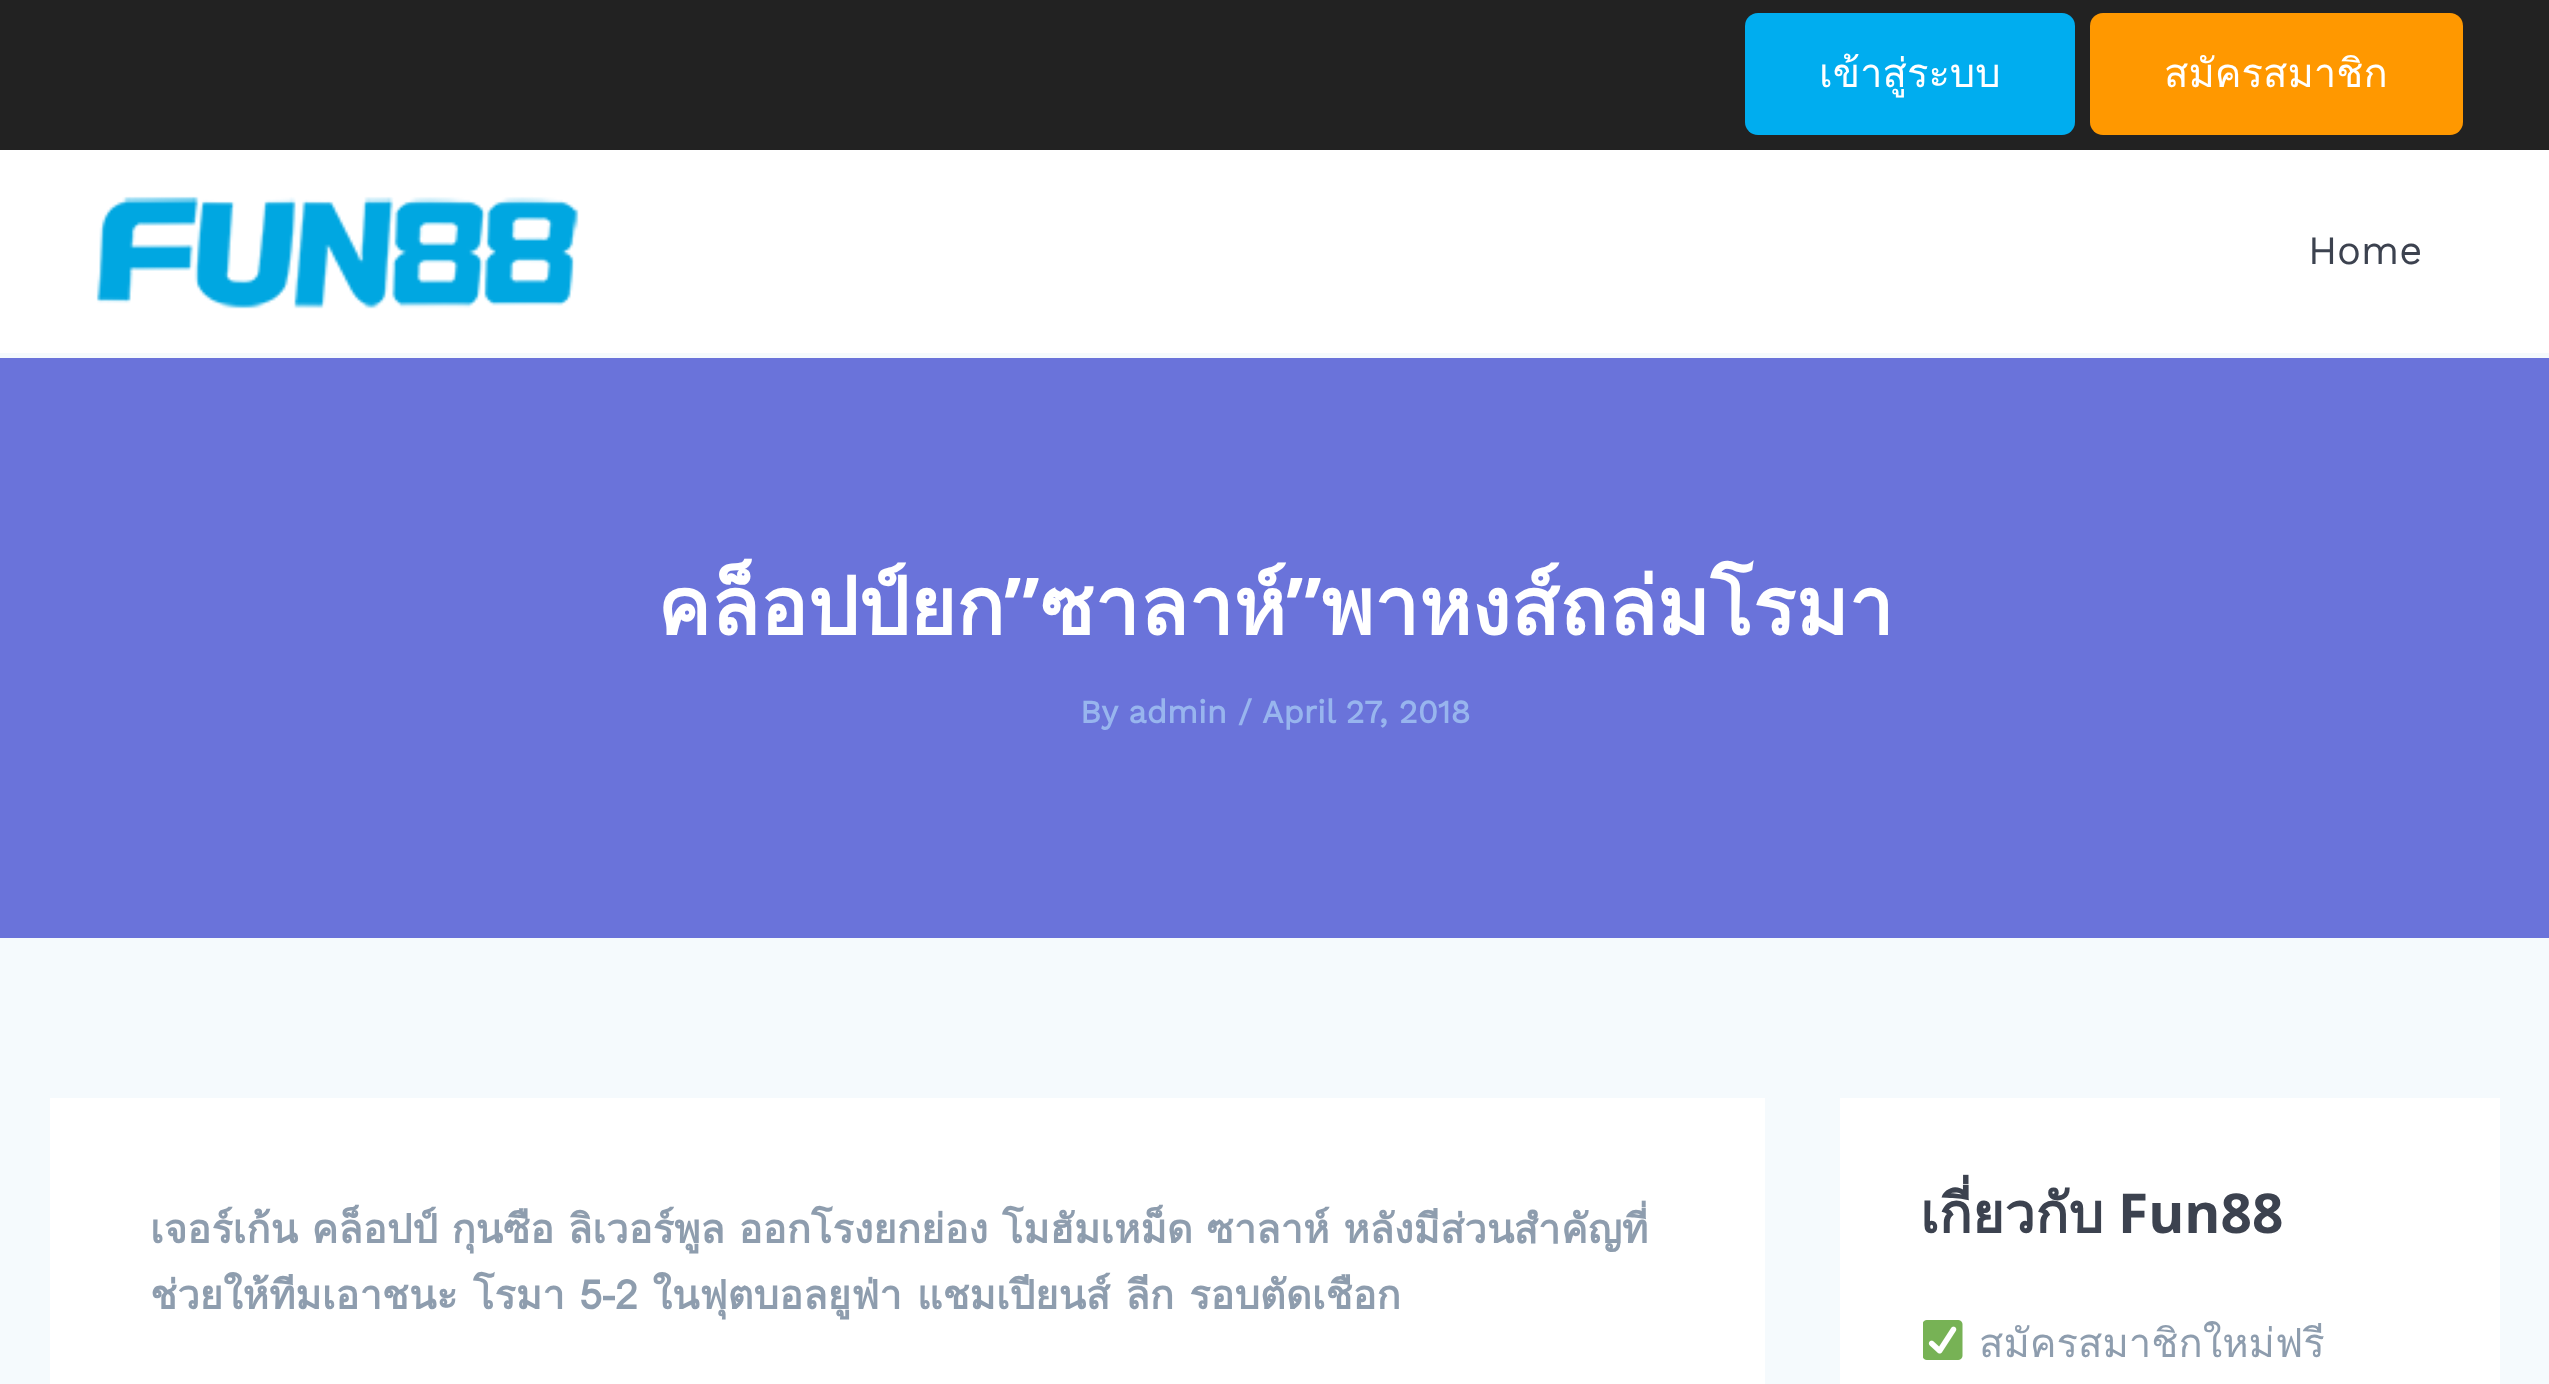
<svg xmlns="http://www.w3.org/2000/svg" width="2549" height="1384">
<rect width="100%" height="100%" fill="#f5fafd"/>
<rect width="2549" height="150" fill="#222"/>
<rect x="1745" y="13" width="330" height="122" rx="13" fill="#00adef"/>
<text x="1819" y="87" style="font-family:Loma;font-size:40px;fill:#fff">เข้าสู่ระบบ</text>
<rect x="2090" y="13" width="373" height="122" rx="13" fill="#ff9800"/>
<text x="2164" y="87" style="font-family:Loma;font-size:40px;fill:#fff">สมัครสมาชิก</text>
<rect y="150" width="2549" height="203" fill="#fff"/>
<image x="96" y="196" width="483" height="113" href="media/1.png"/>
<text x="2308" y="264" style="font-family:Work Sans;font-size:40px;fill:#3c424f">Home</text>
<rect y="358" width="2549" height="580" fill="#6a73da"/>
<text x="657" y="635" style="font-family:Loma;font-size:80px;font-weight:bold;fill:#fff">คล็อปป์ยก</text>
<text x="1004" y="635" style="font-family:Open Sans;font-size:80px;font-weight:bold;fill:#fff">”</text>
<text x="1040" y="635" style="font-family:Loma;font-size:80px;font-weight:bold;fill:#fff">ซาลาห์</text>
<text x="1286" y="635" style="font-family:Open Sans;font-size:80px;font-weight:bold;fill:#fff">”</text>
<text x="1321" y="635" style="font-family:Loma;font-size:80px;font-weight:bold;fill:#fff">พาหงส์ถล่มโรมา</text>
<text x="1080" y="723" style="font-family:Work Sans;font-size:32.5px;font-weight:bold;fill:#98b5ee">By admin /</text>
<text x="1262" y="723" style="font-family:Work Sans;font-size:32.5px;font-weight:bold;fill:#98b5ee">April 27, 2018</text>
<rect x="50" y="1098" width="1715" height="286" fill="#fff"/>
<text x="150" y="1243" word-spacing="0.25" style="font-family:Loma;font-size:40px;font-weight:bold;fill:#8e9dae">เจอร์เก้น คล็อปป์ กุนซือ ลิเวอร์พูล ออกโรงยกย่อง โมฮัมเหม็ด ซาลาห์ หลังมีส่วนสำคัญที่</text>
<text x="150" y="1309" word-spacing="1.5" style="font-family:Loma;font-size:40px;font-weight:bold;fill:#8e9dae">ช่วยให้ทีมเอาชนะ โรมา 5-2 ในฟุตบอลยูฟ่า แชมเปียนส์ ลีก รอบตัดเชือก</text>
<rect x="1840" y="1098" width="660" height="286" fill="#fff"/>
<text x="1920" y="1233" style="font-family:Loma;font-size:55px;font-weight:bold;fill:#3c424f">เกี่ยวกับ</text>
<text x="2118" y="1233" style="font-family:Open Sans;font-size:55px;font-weight:bold;fill:#3c424f">Fun88</text>
<image x="1923" y="1320" width="40" height="40" href="media/2.png"/>
<text x="1979" y="1357" style="font-family:Loma;font-size:40px;fill:#8e9dae">สมัครสมาชิกใหม่ฟรี</text>
</svg>
